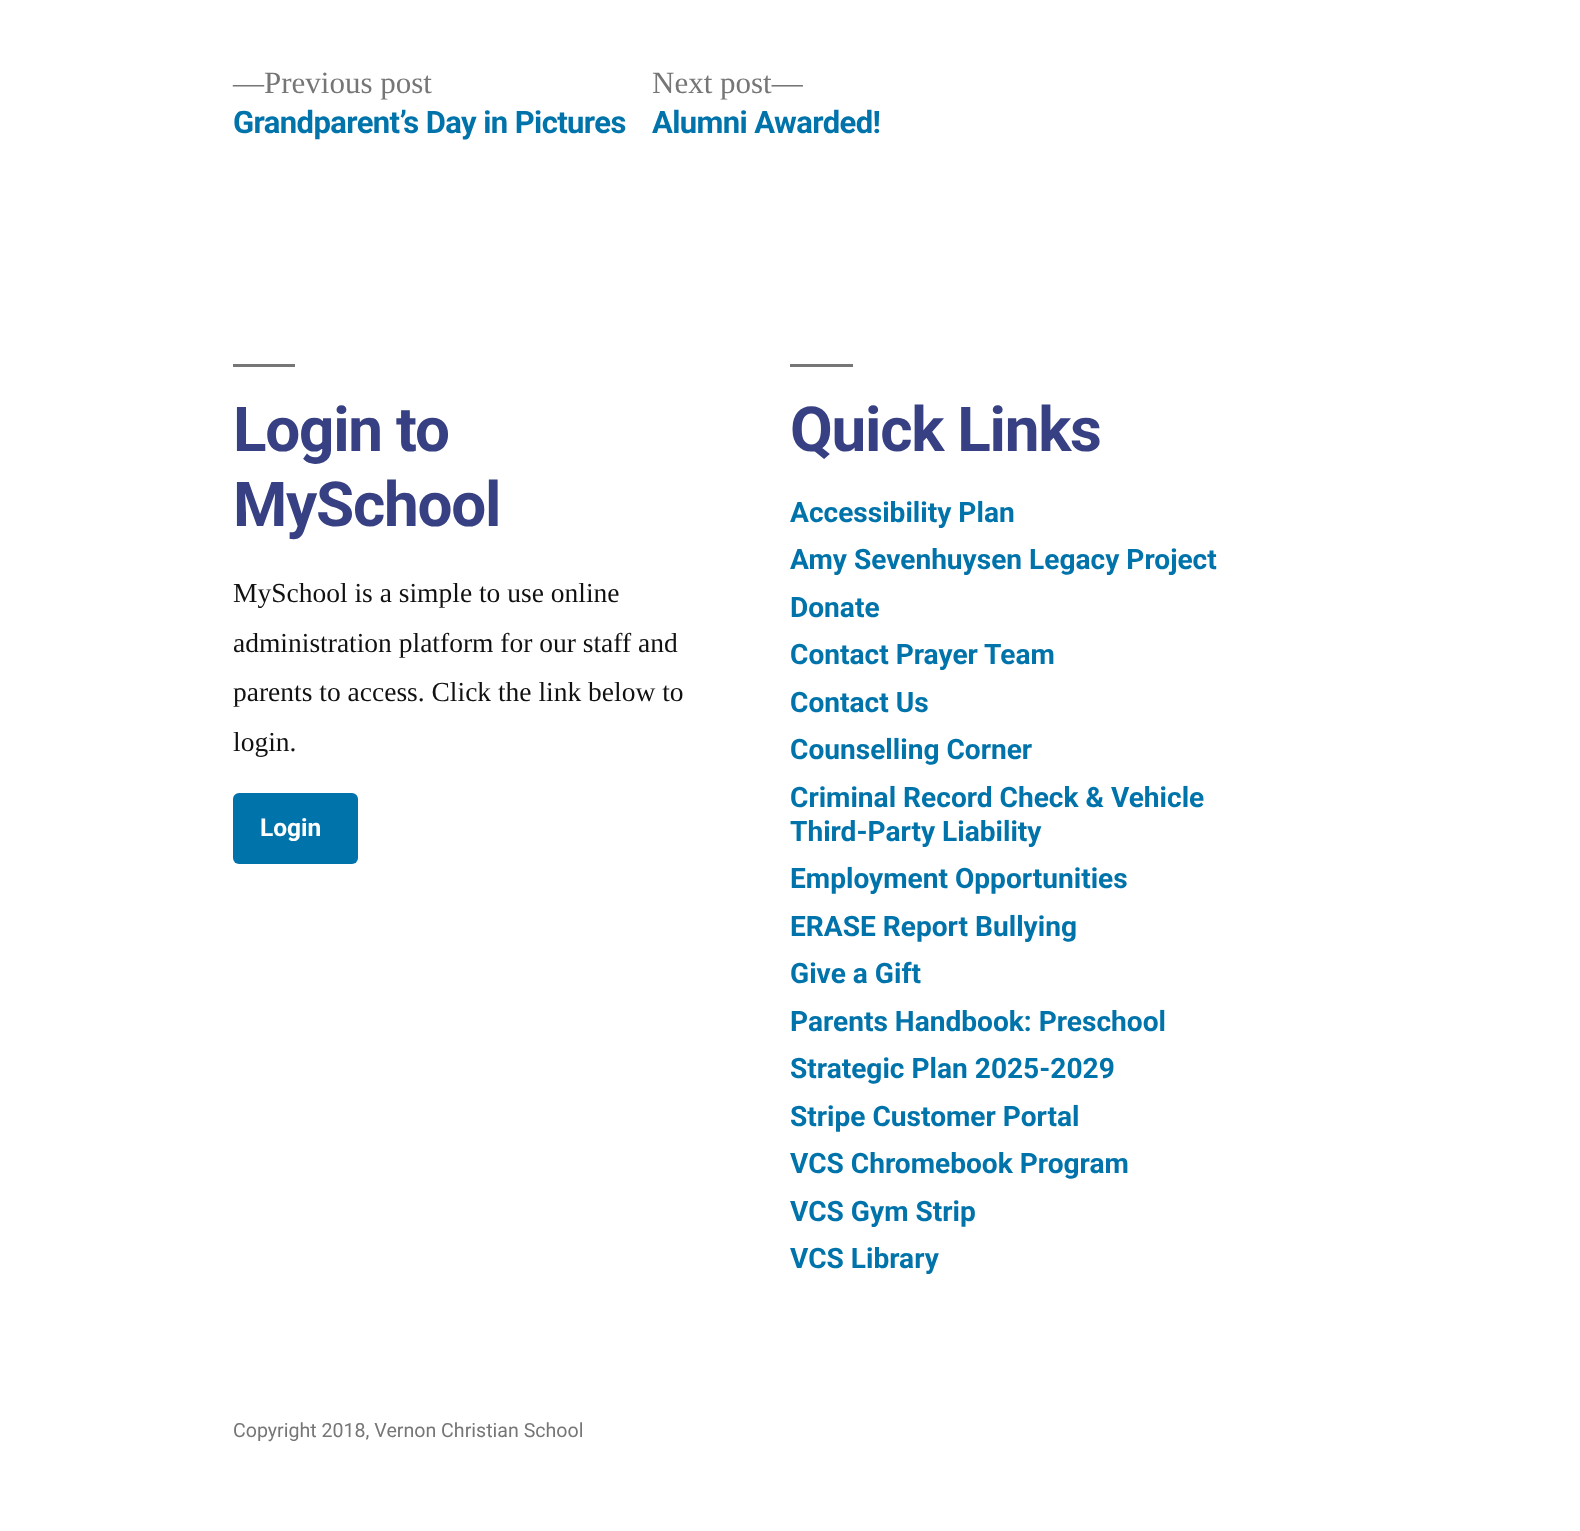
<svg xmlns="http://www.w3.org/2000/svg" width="1580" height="1531">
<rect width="100%" height="100%" fill="#fff"/>
<text x="233" y="93" style="font-family:Liberation Serif;font-size:31px;fill:#767676">—Previous post</text>
<text x="233" y="133" style="font-family:Roboto;font-size:31px;font-weight:bold;letter-spacing:-0.6px;fill:#0073aa">Grandparent’s Day in Pictures</text>
<text x="652" y="93" style="font-family:Liberation Serif;font-size:31px;fill:#767676">Next post—</text>
<text x="652" y="133" style="font-family:Roboto;font-size:31px;font-weight:bold;letter-spacing:-0.6px;fill:#0073aa">Alumni Awarded!</text>
<rect x="233" y="364" width="62" height="3" fill="#767676"/>
<text x="233" y="451" style="font-family:Roboto;font-size:62px;font-weight:bold;letter-spacing:-1.25px;fill:#364083">Login to</text>
<text x="233" y="526" style="font-family:Roboto;font-size:62px;font-weight:bold;letter-spacing:-1.25px;fill:#364083">MySchool</text>
<text x="233" y="602" style="font-family:Liberation Serif;font-size:27.5px;fill:#111">MySchool is a simple to use online</text>
<text x="233" y="652" style="font-family:Liberation Serif;font-size:27.5px;fill:#111">administration platform for our staff and</text>
<text x="233" y="701" style="font-family:Liberation Serif;font-size:27.5px;fill:#111">parents to access. Click the link below to</text>
<text x="233" y="751" style="font-family:Liberation Serif;font-size:27.5px;fill:#111">login.</text>
<rect x="233" y="793" width="125" height="71" rx="6" fill="#0073aa"/>
<text x="260" y="836" style="font-family:Roboto;font-size:24.5px;font-weight:bold;fill:#fff">Login</text>
<rect x="790" y="364" width="63" height="3" fill="#767676"/>
<text x="790" y="451" style="font-family:Roboto;font-size:62px;font-weight:bold;letter-spacing:-1.25px;fill:#364083">Quick Links</text>
<text x="790" y="522" style="font-family:Roboto;font-size:28.1px;font-weight:bold;fill:#0073aa">Accessibility Plan</text>
<text x="790" y="569" style="font-family:Roboto;font-size:28.1px;font-weight:bold;fill:#0073aa">Amy Sevenhuysen Legacy Project</text>
<text x="790" y="617" style="font-family:Roboto;font-size:28.1px;font-weight:bold;fill:#0073aa">Donate</text>
<text x="790" y="664" style="font-family:Roboto;font-size:28.1px;font-weight:bold;fill:#0073aa">Contact Prayer Team</text>
<text x="790" y="712" style="font-family:Roboto;font-size:28.1px;font-weight:bold;fill:#0073aa">Contact Us</text>
<text x="790" y="759" style="font-family:Roboto;font-size:28.1px;font-weight:bold;fill:#0073aa">Counselling Corner</text>
<text x="790" y="807" style="font-family:Roboto;font-size:28.1px;font-weight:bold;fill:#0073aa">Criminal Record Check &amp; Vehicle</text>
<text x="790" y="841" style="font-family:Roboto;font-size:28.1px;font-weight:bold;fill:#0073aa">Third-Party Liability</text>
<text x="790" y="888" style="font-family:Roboto;font-size:28.1px;font-weight:bold;fill:#0073aa">Employment Opportunities</text>
<text x="790" y="936" style="font-family:Roboto;font-size:28.1px;font-weight:bold;fill:#0073aa">ERASE Report Bullying</text>
<text x="790" y="983" style="font-family:Roboto;font-size:28.1px;font-weight:bold;fill:#0073aa">Give a Gift</text>
<text x="790" y="1031" style="font-family:Roboto;font-size:28.1px;font-weight:bold;fill:#0073aa">Parents Handbook: Preschool</text>
<text x="790" y="1078" style="font-family:Roboto;font-size:28.1px;font-weight:bold;fill:#0073aa">Strategic Plan 2025-2029</text>
<text x="790" y="1126" style="font-family:Roboto;font-size:28.1px;font-weight:bold;fill:#0073aa">Stripe Customer Portal</text>
<text x="790" y="1173" style="font-family:Roboto;font-size:28.1px;font-weight:bold;fill:#0073aa">VCS Chromebook Program</text>
<text x="790" y="1221" style="font-family:Roboto;font-size:28.1px;font-weight:bold;fill:#0073aa">VCS Gym Strip</text>
<text x="790" y="1268" style="font-family:Roboto;font-size:28.1px;font-weight:bold;fill:#0073aa">VCS Library</text>
<text x="233" y="1437" style="font-family:Roboto;font-size:19.6px;fill:#767676">Copyright 2018, Vernon Christian School</text>
</svg>
